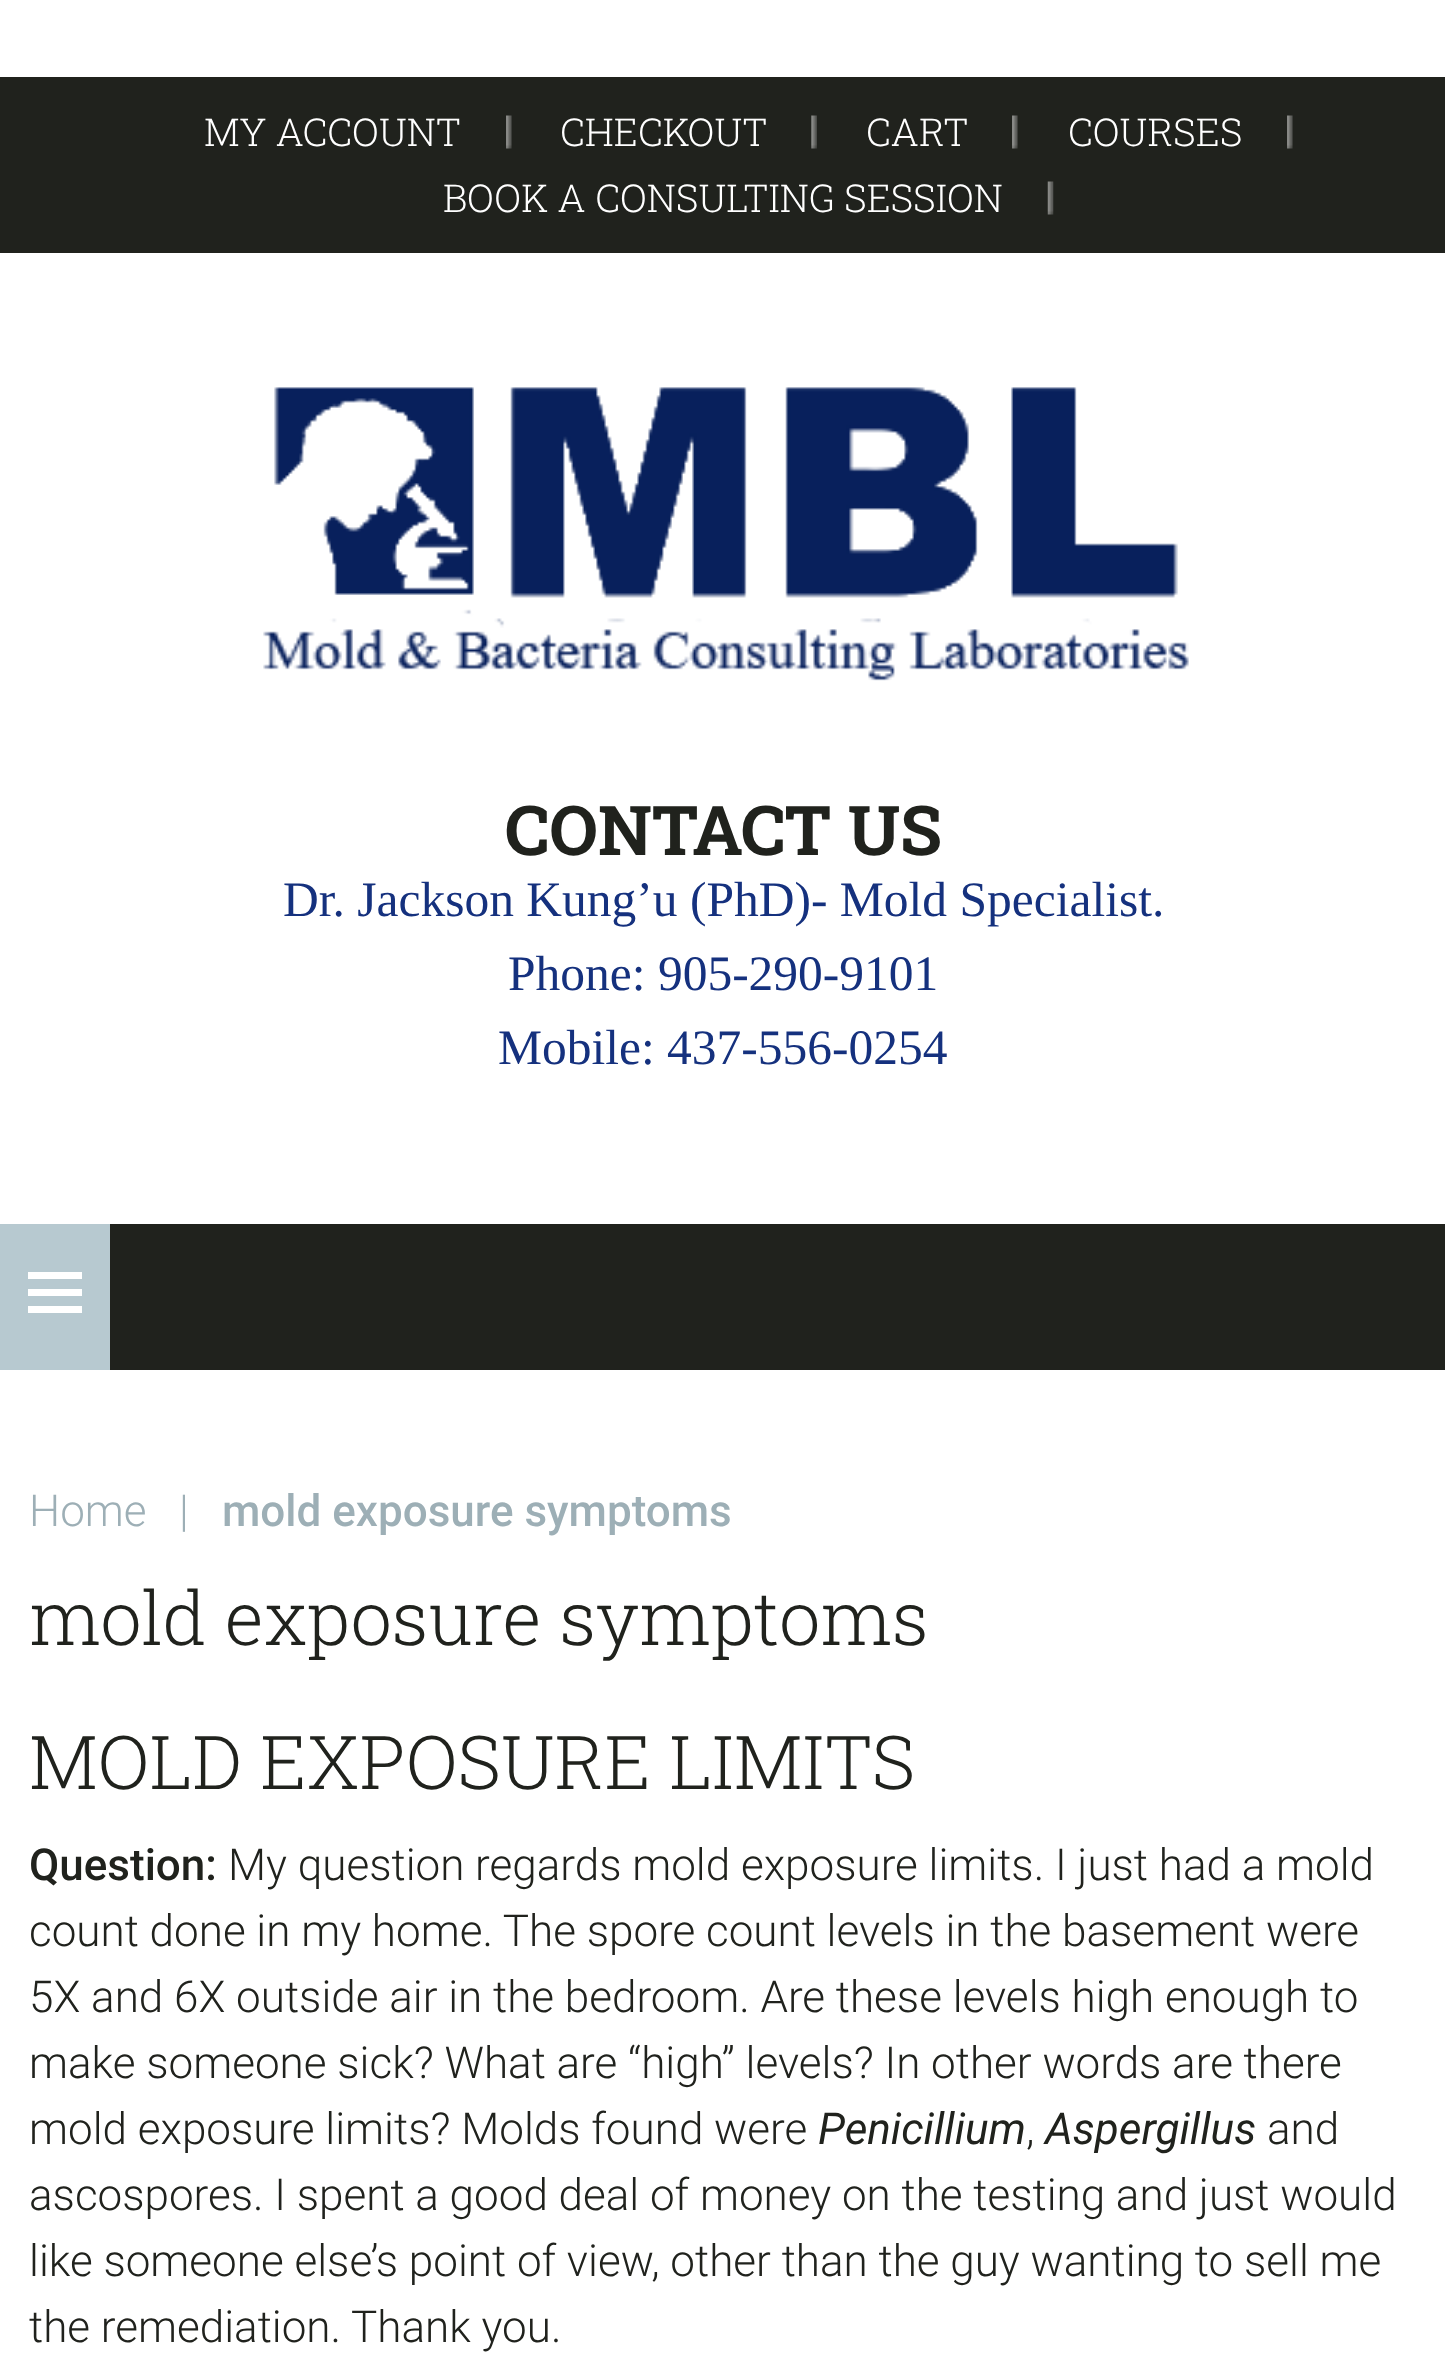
<svg xmlns="http://www.w3.org/2000/svg" width="1445" height="2369">
<rect width="100%" height="100%" fill="#fff"/>
<rect y="77" width="1445" height="176" fill="#20221d"/>
<image x="506" y="115" width="6" height="34" href="media/1.png"/>
<text x="204" y="146" style="font-family:Roboto Slab;font-size:38.5px;font-weight:300;fill:#fff">MY ACCOUNT</text>
<image x="811" y="115" width="6" height="34" href="media/2.png"/>
<text x="560" y="146" style="font-family:Roboto Slab;font-size:38.5px;font-weight:300;fill:#fff">CHECKOUT</text>
<image x="1012" y="115" width="6" height="34" href="media/1.png"/>
<text x="866" y="146" style="font-family:Roboto Slab;font-size:38.5px;font-weight:300;fill:#fff">CART</text>
<image x="1287" y="115" width="6" height="34" href="media/1.png"/>
<text x="1068" y="146" style="font-family:Roboto Slab;font-size:38.5px;font-weight:300;fill:#fff">COURSES</text>
<image x="1047" y="181" width="7" height="34" href="media/3.png"/>
<text x="443" y="212" style="font-family:Roboto Slab;font-size:38.5px;font-weight:300;fill:#fff">BOOK A CONSULTING SESSION</text>
<image x="263" y="387" width="926" height="294" href="media/4.png"/>
<text x="505" y="855" style="font-family:Roboto Slab;font-size:68.75px;font-weight:bold;fill:#20221d">CONTACT US</text>
<text x="283" y="916" style="font-family:Liberation Serif;font-size:49.5px;fill:#15317e">Dr. Jackson Kung’u (PhD)- Mold Specialist.</text>
<text x="508" y="990" style="font-family:Liberation Serif;font-size:49.5px;fill:#15317e">Phone: 905-290-9101</text>
<text x="498" y="1064" style="font-family:Liberation Serif;font-size:49.5px;fill:#15317e">Mobile: 437-556-0254</text>
<rect x="110" y="1224" width="1335" height="146" fill="#20221d"/>
<rect y="1224" width="110" height="146" fill="#b7c9d0"/>
<path d="M28 1313v-7h54v7zm0-41h54v7h-54zm0 24v-7h54v7z" fill="#fff"/>
<text x="29" y="1526" style="font-family:Roboto;font-size:44px;font-weight:300;fill:#9dafb6">Home</text>
<text x="179" y="1526" style="font-family:Roboto;font-size:44px;font-weight:300;fill:#9dafb6">|</text>
<text x="222" y="1526" style="font-family:Roboto;font-size:44px;font-weight:500;fill:#9dafb6">mold exposure symptoms</text>
<text x="29" y="1645" style="font-family:Roboto Slab;font-size:74.25px;font-weight:300;fill:#20221d">mold exposure symptoms</text>
<text x="29" y="1789" style="font-family:Roboto Slab;font-size:74.25px;font-weight:300;fill:#20221d">MOLD EXPOSURE LIMITS</text>
<text x="29" y="1880" style="font-family:Roboto;font-size:44px;font-weight:500;fill:#20221d">Question:</text>
<text x="228" y="1880" style="font-family:Roboto;font-size:44px;font-weight:300;fill:#20221d">My question regards mold exposure limits. I just had a mold</text>
<text x="29" y="1946" style="font-family:Roboto;font-size:44px;font-weight:300;fill:#20221d">count done in my home. The spore count levels in the basement were</text>
<text x="29" y="2012" style="font-family:Roboto;font-size:44px;font-weight:300;fill:#20221d">5X and 6X outside air in the bedroom. Are these levels high enough to</text>
<text x="29" y="2078" style="font-family:Roboto;font-size:44px;font-weight:300;fill:#20221d">make someone sick? What are “high” levels? In other words are there</text>
<text x="29" y="2144" style="font-family:Roboto;font-size:44px;font-weight:300;fill:#20221d">mold exposure limits? Molds found were</text>
<text x="818" y="2144" style="font-family:Roboto;font-size:44px;font-style:italic;fill:#20221d">Penicillium</text>
<text x="1026" y="2144" style="font-family:Roboto;font-size:44px;font-weight:300;fill:#20221d">,</text>
<text x="1045" y="2144" style="font-family:Roboto;font-size:44px;font-style:italic;fill:#20221d">Aspergillus</text>
<text x="1267" y="2144" style="font-family:Roboto;font-size:44px;font-weight:300;fill:#20221d">and</text>
<text x="29" y="2210" style="font-family:Roboto;font-size:44px;font-weight:300;fill:#20221d">ascospores. I spent a good deal of money on the testing and just would</text>
<text x="29" y="2276" style="font-family:Roboto;font-size:44px;font-weight:300;fill:#20221d">like someone else’s point of view, other than the guy wanting to sell me</text>
<text x="29" y="2342" style="font-family:Roboto;font-size:44px;font-weight:300;fill:#20221d">the remediation. Thank you.</text>
</svg>
